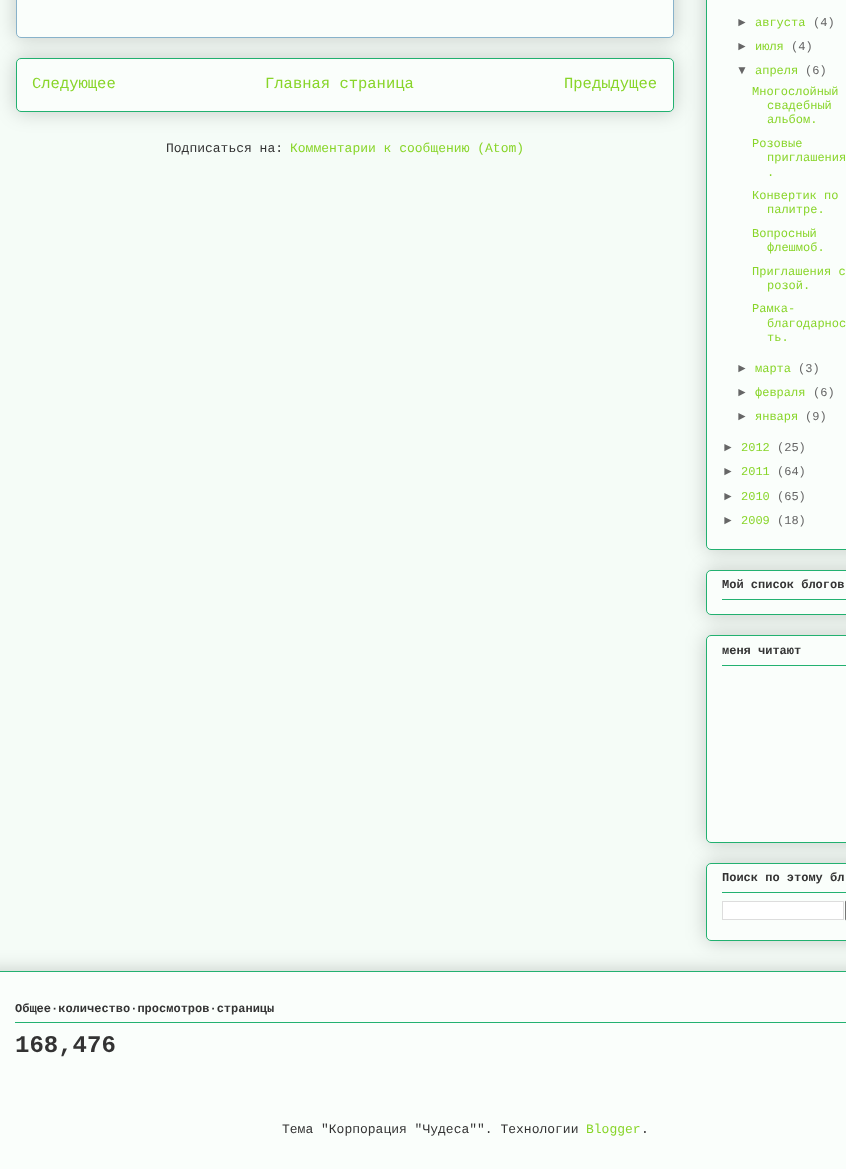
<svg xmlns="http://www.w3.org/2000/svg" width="846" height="1169">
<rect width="100%" height="100%" fill="#f5fcf7"/>
<rect x="16" y="58" width="658" height="54" rx="5" fill="#00000033" filter="blur(10px)"/>
<rect x="16.5" y="58.5" width="657" height="53" rx="4.5" fill="#fafefb" stroke="#22b170"/>
<rect x="16" y="-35" width="658" height="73" rx="5" fill="#00000033" filter="blur(10px)"/>
<rect x="16.5" y="-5.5" width="657" height="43" rx="4.5" fill="#fafefb" stroke="#88b2ca"/>
<text x="32" y="88" style="font-family:Liberation Mono;font-size:15.5px;fill:#88d529">Следующее</text>
<text x="265" y="88" style="font-family:Liberation Mono;font-size:15.5px;fill:#88d529">Главная страница</text>
<text x="564" y="88" style="font-family:Liberation Mono;font-size:15.5px;fill:#88d529">Предыдущее</text>
<text x="166" y="152" style="font-family:Liberation Mono;font-size:13px;fill:#333">Подписаться на:</text>
<text x="290" y="152" style="font-family:Liberation Mono;font-size:13px;fill:#88d529">Комментарии к сообщению (Atom)</text>
<rect x="706" y="-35" width="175" height="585" rx="5" fill="#00000033" filter="blur(10px)"/>
<rect x="706.5" y="-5.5" width="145" height="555" rx="4.5" fill="#fafefb" stroke="#22b170"/>
<text x="736" y="26" style="font-family:Liberation Sans;font-size:12px;fill:#666">►</text>
<text x="755" y="26" style="font-family:Liberation Mono;font-size:12px;fill:#88d529">августа</text>
<text x="813" y="26" style="font-family:Liberation Mono;font-size:12px;fill:#666">(4)</text>
<text x="736" y="50" style="font-family:Liberation Sans;font-size:12px;fill:#666">►</text>
<text x="755" y="50" style="font-family:Liberation Mono;font-size:12px;fill:#88d529">июля</text>
<text x="791" y="50" style="font-family:Liberation Mono;font-size:12px;fill:#666">(4)</text>
<text x="736" y="74" style="font-family:Liberation Sans;font-size:12px;fill:#666">▼</text>
<text x="755" y="74" style="font-family:Liberation Mono;font-size:12px;fill:#88d529">апреля</text>
<text x="805" y="74" style="font-family:Liberation Mono;font-size:12px;fill:#666">(6)</text>
<text x="752" y="95" style="font-family:Liberation Mono;font-size:12px;fill:#88d529">Многослойный</text>
<text x="767" y="109" style="font-family:Liberation Mono;font-size:12px;fill:#88d529">свадебный</text>
<text x="767" y="123" style="font-family:Liberation Mono;font-size:12px;fill:#88d529">альбом.</text>
<text x="752" y="147" style="font-family:Liberation Mono;font-size:12px;fill:#88d529">Розовые</text>
<text x="767" y="161" style="font-family:Liberation Mono;font-size:12px;fill:#88d529">приглашения</text>
<text x="767" y="176" style="font-family:Liberation Mono;font-size:12px;fill:#88d529">.</text>
<text x="752" y="199" style="font-family:Liberation Mono;font-size:12px;fill:#88d529">Конвертик по</text>
<text x="767" y="213" style="font-family:Liberation Mono;font-size:12px;fill:#88d529">палитре.</text>
<text x="752" y="237" style="font-family:Liberation Mono;font-size:12px;fill:#88d529">Вопросный</text>
<text x="767" y="251" style="font-family:Liberation Mono;font-size:12px;fill:#88d529">флешмоб.</text>
<text x="752" y="275" style="font-family:Liberation Mono;font-size:12px;fill:#88d529">Приглашения с</text>
<text x="767" y="289" style="font-family:Liberation Mono;font-size:12px;fill:#88d529">розой.</text>
<text x="752" y="312" style="font-family:Liberation Mono;font-size:12px;fill:#88d529">Рамка-</text>
<text x="767" y="327" style="font-family:Liberation Mono;font-size:12px;fill:#88d529">благодарнос</text>
<text x="767" y="341" style="font-family:Liberation Mono;font-size:12px;fill:#88d529">ть.</text>
<text x="736" y="372" style="font-family:Liberation Sans;font-size:12px;fill:#666">►</text>
<text x="755" y="372" style="font-family:Liberation Mono;font-size:12px;fill:#88d529">марта</text>
<text x="798" y="372" style="font-family:Liberation Mono;font-size:12px;fill:#666">(3)</text>
<text x="736" y="396" style="font-family:Liberation Sans;font-size:12px;fill:#666">►</text>
<text x="755" y="396" style="font-family:Liberation Mono;font-size:12px;fill:#88d529">февраля</text>
<text x="813" y="396" style="font-family:Liberation Mono;font-size:12px;fill:#666">(6)</text>
<text x="736" y="420" style="font-family:Liberation Sans;font-size:12px;fill:#666">►</text>
<text x="755" y="420" style="font-family:Liberation Mono;font-size:12px;fill:#88d529">января</text>
<text x="805" y="420" style="font-family:Liberation Mono;font-size:12px;fill:#666">(9)</text>
<text x="722" y="451" style="font-family:Liberation Sans;font-size:12px;fill:#666">►</text>
<text x="741" y="451" style="font-family:Liberation Mono;font-size:12px;fill:#88d529">2012</text>
<text x="777" y="451" style="font-family:Liberation Mono;font-size:12px;fill:#666">(25)</text>
<text x="722" y="475" style="font-family:Liberation Sans;font-size:12px;fill:#666">►</text>
<text x="741" y="475" style="font-family:Liberation Mono;font-size:12px;fill:#88d529">2011</text>
<text x="777" y="475" style="font-family:Liberation Mono;font-size:12px;fill:#666">(64)</text>
<text x="722" y="500" style="font-family:Liberation Sans;font-size:12px;fill:#666">►</text>
<text x="741" y="500" style="font-family:Liberation Mono;font-size:12px;fill:#88d529">2010</text>
<text x="777" y="500" style="font-family:Liberation Mono;font-size:12px;fill:#666">(65)</text>
<text x="722" y="524" style="font-family:Liberation Sans;font-size:12px;fill:#666">►</text>
<text x="741" y="524" style="font-family:Liberation Mono;font-size:12px;fill:#88d529">2009</text>
<text x="777" y="524" style="font-family:Liberation Mono;font-size:12px;fill:#666">(18)</text>
<rect x="706" y="570" width="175" height="45" rx="5" fill="#00000033" filter="blur(10px)"/>
<rect x="706.5" y="570.5" width="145" height="44" rx="4.5" fill="#fafefb" stroke="#22b170"/>
<text x="722" y="588" style="font-family:Liberation Mono;font-size:12px;font-weight:bold;fill:#333">Мой список блогов</text>
<rect x="722" y="599" width="124" height="1" fill="#22b170"/>
<rect x="706" y="635" width="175" height="208" rx="5" fill="#00000033" filter="blur(10px)"/>
<rect x="706.5" y="635.5" width="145" height="207" rx="4.5" fill="#fafefb" stroke="#22b170"/>
<text x="722" y="654" style="font-family:Liberation Mono;font-size:12px;font-weight:bold;fill:#333">меня читают</text>
<rect x="722" y="665" width="124" height="1" fill="#22b170"/>
<rect x="706" y="863" width="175" height="78" rx="5" fill="#00000033" filter="blur(10px)"/>
<rect x="706.5" y="863.5" width="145" height="77" rx="4.5" fill="#fafefb" stroke="#22b170"/>
<text x="722" y="881" style="font-family:Liberation Mono;font-size:12px;font-weight:bold;fill:#333">Поиск по этому бл</text>
<rect x="722" y="892" width="124" height="1" fill="#22b170"/>
<rect x="722.5" y="901.5" width="121" height="18" fill="#fff" stroke="#ddd"/>
<rect x="845.5" y="900.5" width="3" height="20" rx="1.5" fill="none" stroke="#767676"/>
<rect x="-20" y="971" width="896" height="198" fill="#00000033" filter="blur(10px)"/>
<rect y="972" width="846" height="197" fill="#fafefb"/>
<rect y="971" width="846" height="1" fill="#22b170"/>
<text x="15" y="1012" style="font-family:Liberation Mono;font-size:12px;font-weight:bold;fill:#333">Общее·количество·просмотров·страницы</text>
<rect x="15" y="1022" width="831" height="1" fill="#22b170"/>
<text x="15" y="1052" style="font-family:Liberation Mono;font-size:24px;font-weight:bold;fill:#333">168,476</text>
<text x="282" y="1133" style="font-family:Liberation Mono;font-size:13px;fill:#333">Тема "Корпорация "Чудеса"". Технологии</text>
<text x="586" y="1133" style="font-family:Liberation Mono;font-size:13px;fill:#88d529">Blogger</text>
<text x="641" y="1133" style="font-family:Liberation Mono;font-size:13px;fill:#333">.</text>
</svg>
